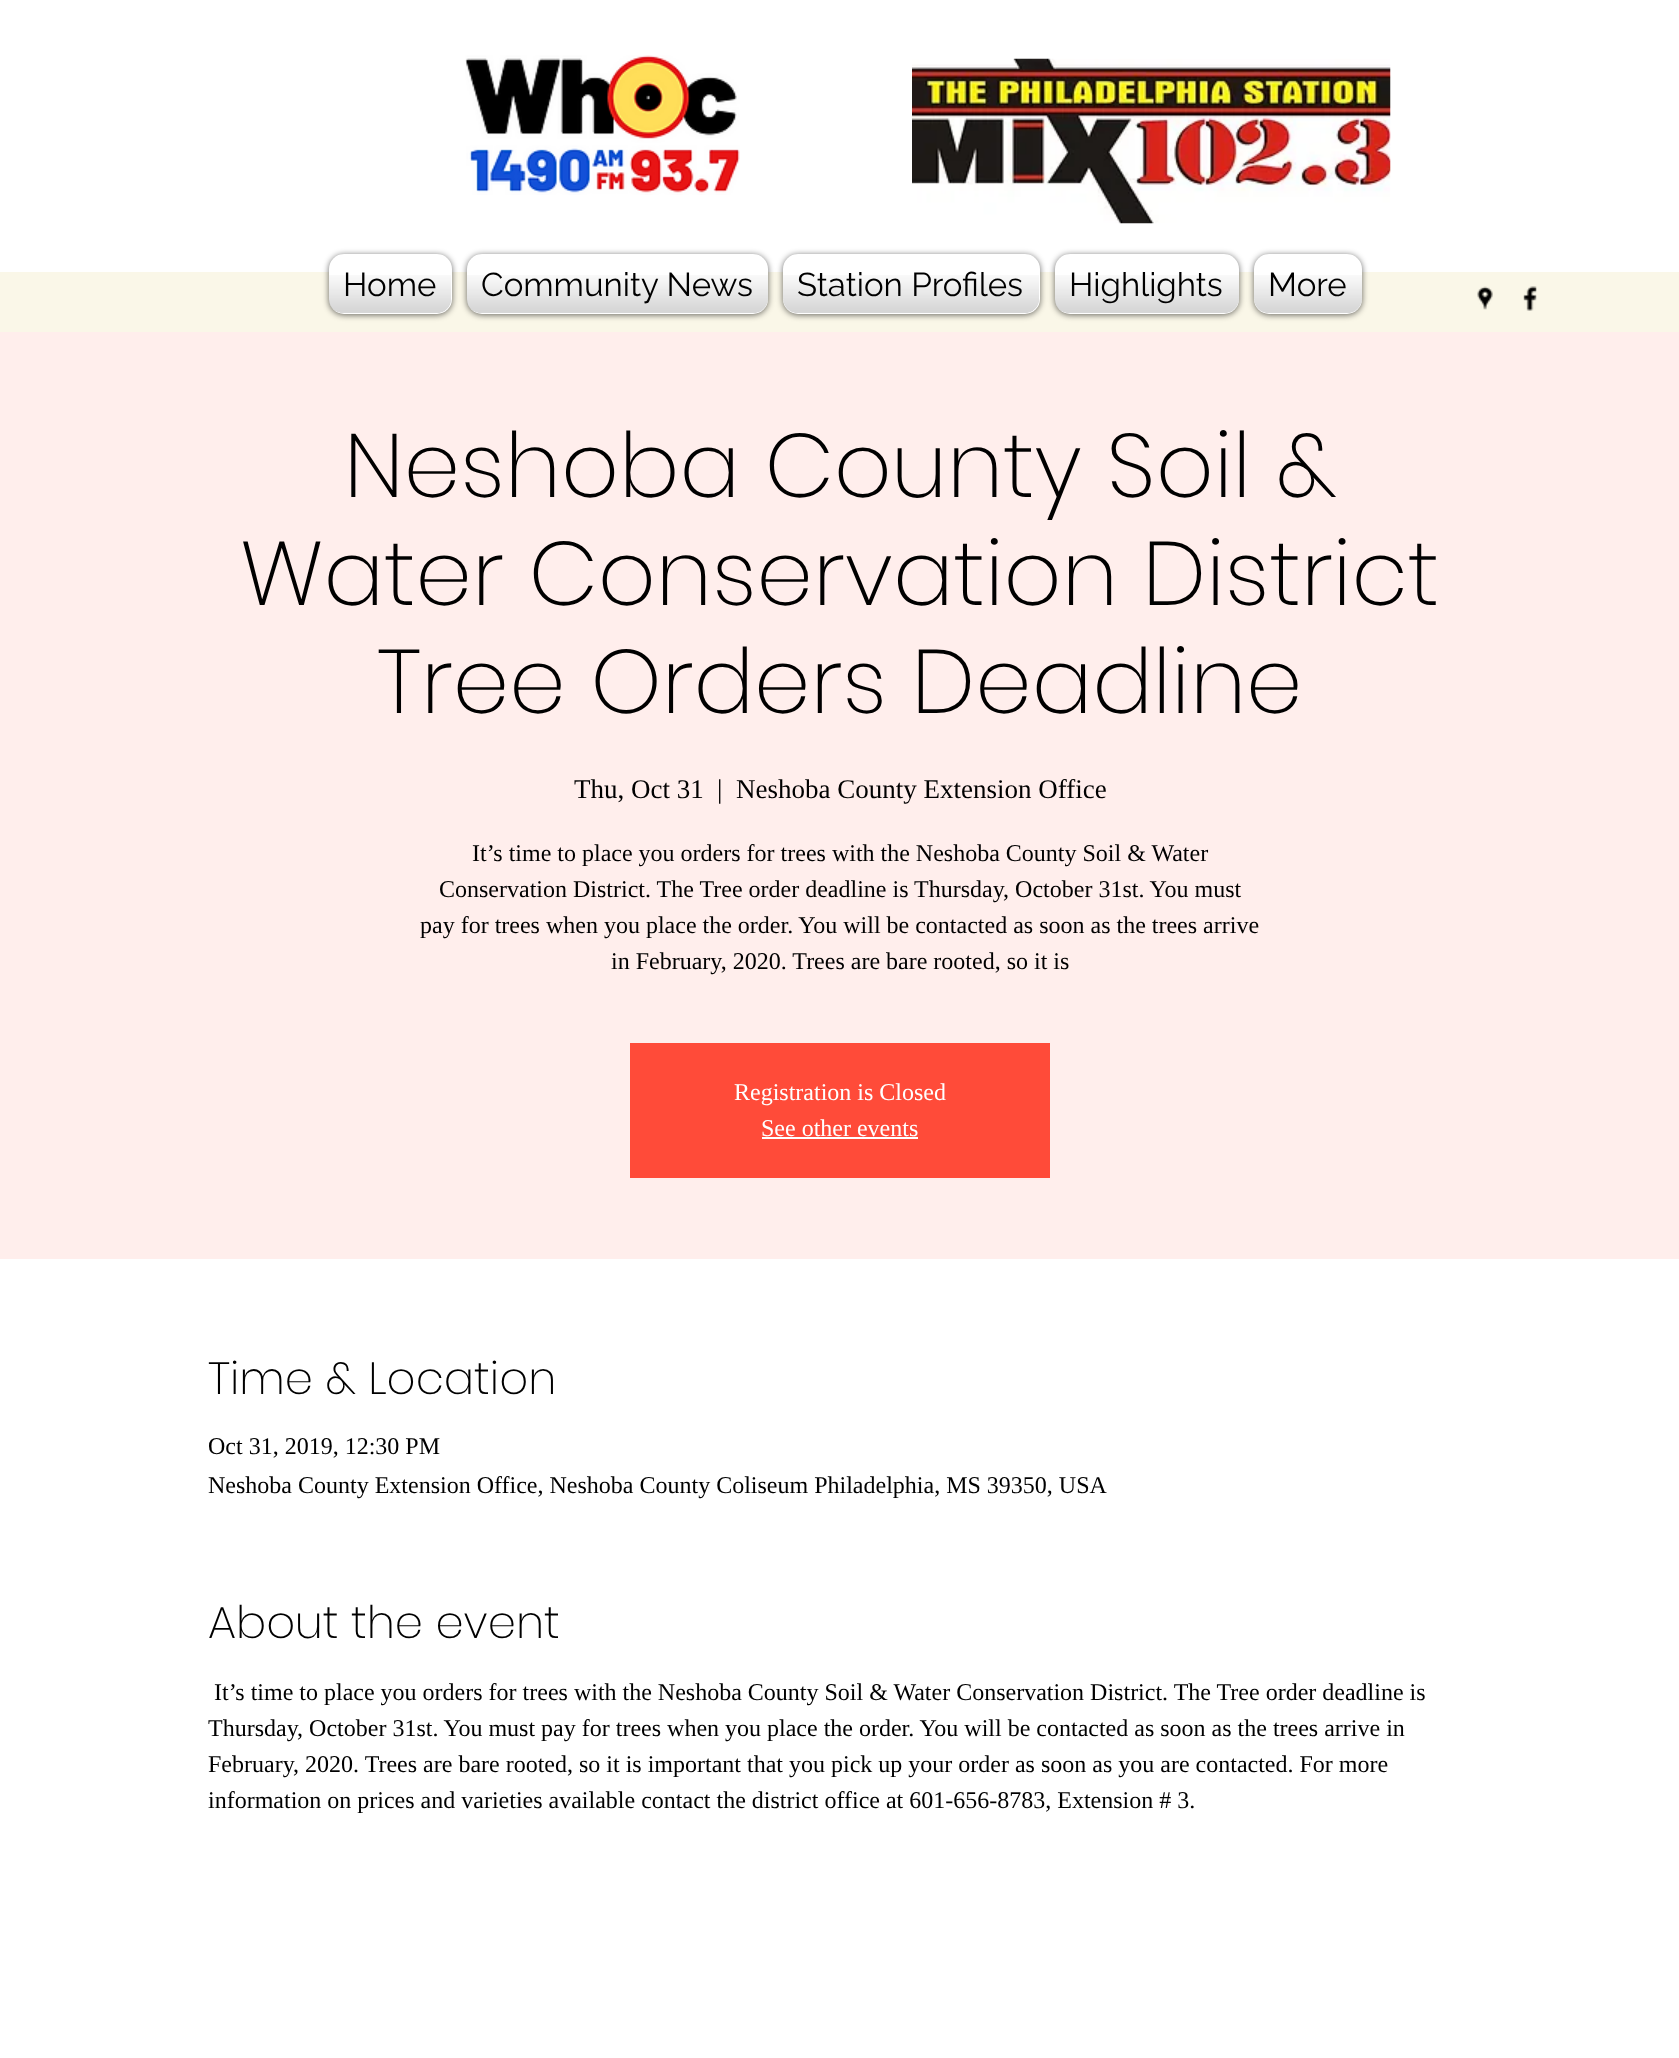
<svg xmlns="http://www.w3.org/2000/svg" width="1679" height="2058">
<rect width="100%" height="100%" fill="#fff"/>
<image x="465" y="55" width="275" height="140" href="media/1.png"/>
<image x="912" y="58" width="479" height="166" href="media/2.png"/>
<rect y="272" width="1679" height="60" fill="#faf7e8"/>
<rect x="329" y="255" width="123" height="60" rx="15" fill="#00000099" filter="blur(3px)"/>
<rect x="329" y="254" width="123" height="60" rx="15" fill="#fff"/>
<image x="329" y="275" width="122" height="38" href="media/3.png"/>
<text x="343" y="296" style="font-family:Raleway;font-size:33px;fill:#000">Home</text>
<rect x="467" y="255" width="301" height="60" rx="15" fill="#00000099" filter="blur(3px)"/>
<rect x="467" y="254" width="301" height="60" rx="15" fill="#fff"/>
<image x="467" y="275" width="301" height="38" href="media/4.png"/>
<text x="481" y="296" style="font-family:Raleway;font-size:33px;fill:#000">Community News</text>
<rect x="783" y="255" width="257" height="60" rx="15" fill="#00000099" filter="blur(3px)"/>
<rect x="783" y="254" width="257" height="60" rx="15" fill="#fff"/>
<image x="783" y="275" width="256" height="38" href="media/5.png"/>
<text x="797" y="296" style="font-family:Raleway;font-size:33px;fill:#000">Station Profiles</text>
<rect x="1055" y="255" width="184" height="60" rx="15" fill="#00000099" filter="blur(3px)"/>
<rect x="1055" y="254" width="184" height="60" rx="15" fill="#fff"/>
<image x="1055" y="275" width="184" height="38" href="media/6.png"/>
<text x="1069" y="296" style="font-family:Raleway;font-size:33px;fill:#000">Highlights</text>
<rect x="1254" y="255" width="108" height="60" rx="15" fill="#00000099" filter="blur(3px)"/>
<rect x="1254" y="254" width="108" height="60" rx="15" fill="#fff"/>
<image x="1254" y="275" width="108" height="38" href="media/7.png"/>
<text x="1268" y="296" style="font-family:Raleway;font-size:33px;fill:#000">More</text>
<image x="1477" y="286" width="16" height="24" href="media/8.png"/>
<image x="1523" y="286" width="14" height="25" href="media/9.png"/>
<rect y="332" width="1679" height="927" fill="#ffeeec"/>
<text x="344" y="497" style="font-family:Poppins;font-size:90px;font-weight:200;fill:#000">Neshoba County Soil &amp;</text>
<text x="240" y="605" style="font-family:Poppins;font-size:90px;font-weight:200;fill:#000">Water Conservation District</text>
<text x="377" y="713" style="font-family:Poppins;font-size:90px;font-weight:200;fill:#000">Tree Orders Deadline</text>
<text x="574" y="798" style="font-family:Liberation Serif;font-size:27px;fill:#000">Thu, Oct 31</text>
<text x="717" y="798" style="font-family:Liberation Serif;font-size:27px;fill:#000">|</text>
<text x="736" y="798" style="font-family:Liberation Serif;font-size:27px;fill:#000">Neshoba County Extension Office</text>
<text x="472" y="861" style="font-family:Liberation Serif;font-size:24px;fill:#000">It’s time to place you orders for trees with the Neshoba County Soil &amp; Water</text>
<text x="439" y="897" style="font-family:Liberation Serif;font-size:24px;fill:#000">Conservation District. The Tree order deadline is Thursday, October 31st. You must</text>
<text x="420" y="933" style="font-family:Liberation Serif;font-size:24px;fill:#000">pay for trees when you place the order. You will be contacted as soon as the trees arrive</text>
<text x="611" y="969" style="font-family:Liberation Serif;font-size:24px;fill:#000">in February, 2020. Trees are bare rooted, so it is</text>
<rect x="630" y="1043" width="420" height="135" fill="#ff4b39"/>
<text x="734" y="1100" style="font-family:Liberation Serif;font-size:24px;fill:#fff">Registration is Closed</text>
<text x="761" y="1136" style="font-family:Liberation Serif;font-size:24px;fill:#fff">See other events</text>
<rect x="762" y="1137" width="156" height="2" fill="#fff"/>
<text x="208" y="1394" style="font-family:Poppins;font-size:45px;font-weight:200;fill:#000">Time &amp; Location</text>
<text x="208" y="1454" style="font-family:Liberation Serif;font-size:24px;fill:#000">Oct 31, 2019, 12:30 PM</text>
<text x="208" y="1493" style="font-family:Liberation Serif;font-size:24px;fill:#000">Neshoba County Extension Office, Neshoba County Coliseum Philadelphia, MS 39350, USA</text>
<text x="208" y="1638" style="font-family:Poppins;font-size:45px;font-weight:200;fill:#000">About the event</text>
<text x="214" y="1700" style="font-family:Liberation Serif;font-size:24px;fill:#000">It’s time to place you orders for trees with the Neshoba County Soil &amp; Water Conservation District. The Tree order deadline is</text>
<text x="208" y="1736" style="font-family:Liberation Serif;font-size:24px;fill:#000">Thursday, October 31st. You must pay for trees when you place the order. You will be contacted as soon as the trees arrive in</text>
<text x="208" y="1772" style="font-family:Liberation Serif;font-size:24px;fill:#000">February, 2020. Trees are bare rooted, so it is important that you pick up your order as soon as you are contacted. For more</text>
<text x="208" y="1808" style="font-family:Liberation Serif;font-size:24px;fill:#000">information on prices and varieties available contact the district office at 601-656-8783, Extension # 3.</text>
</svg>
